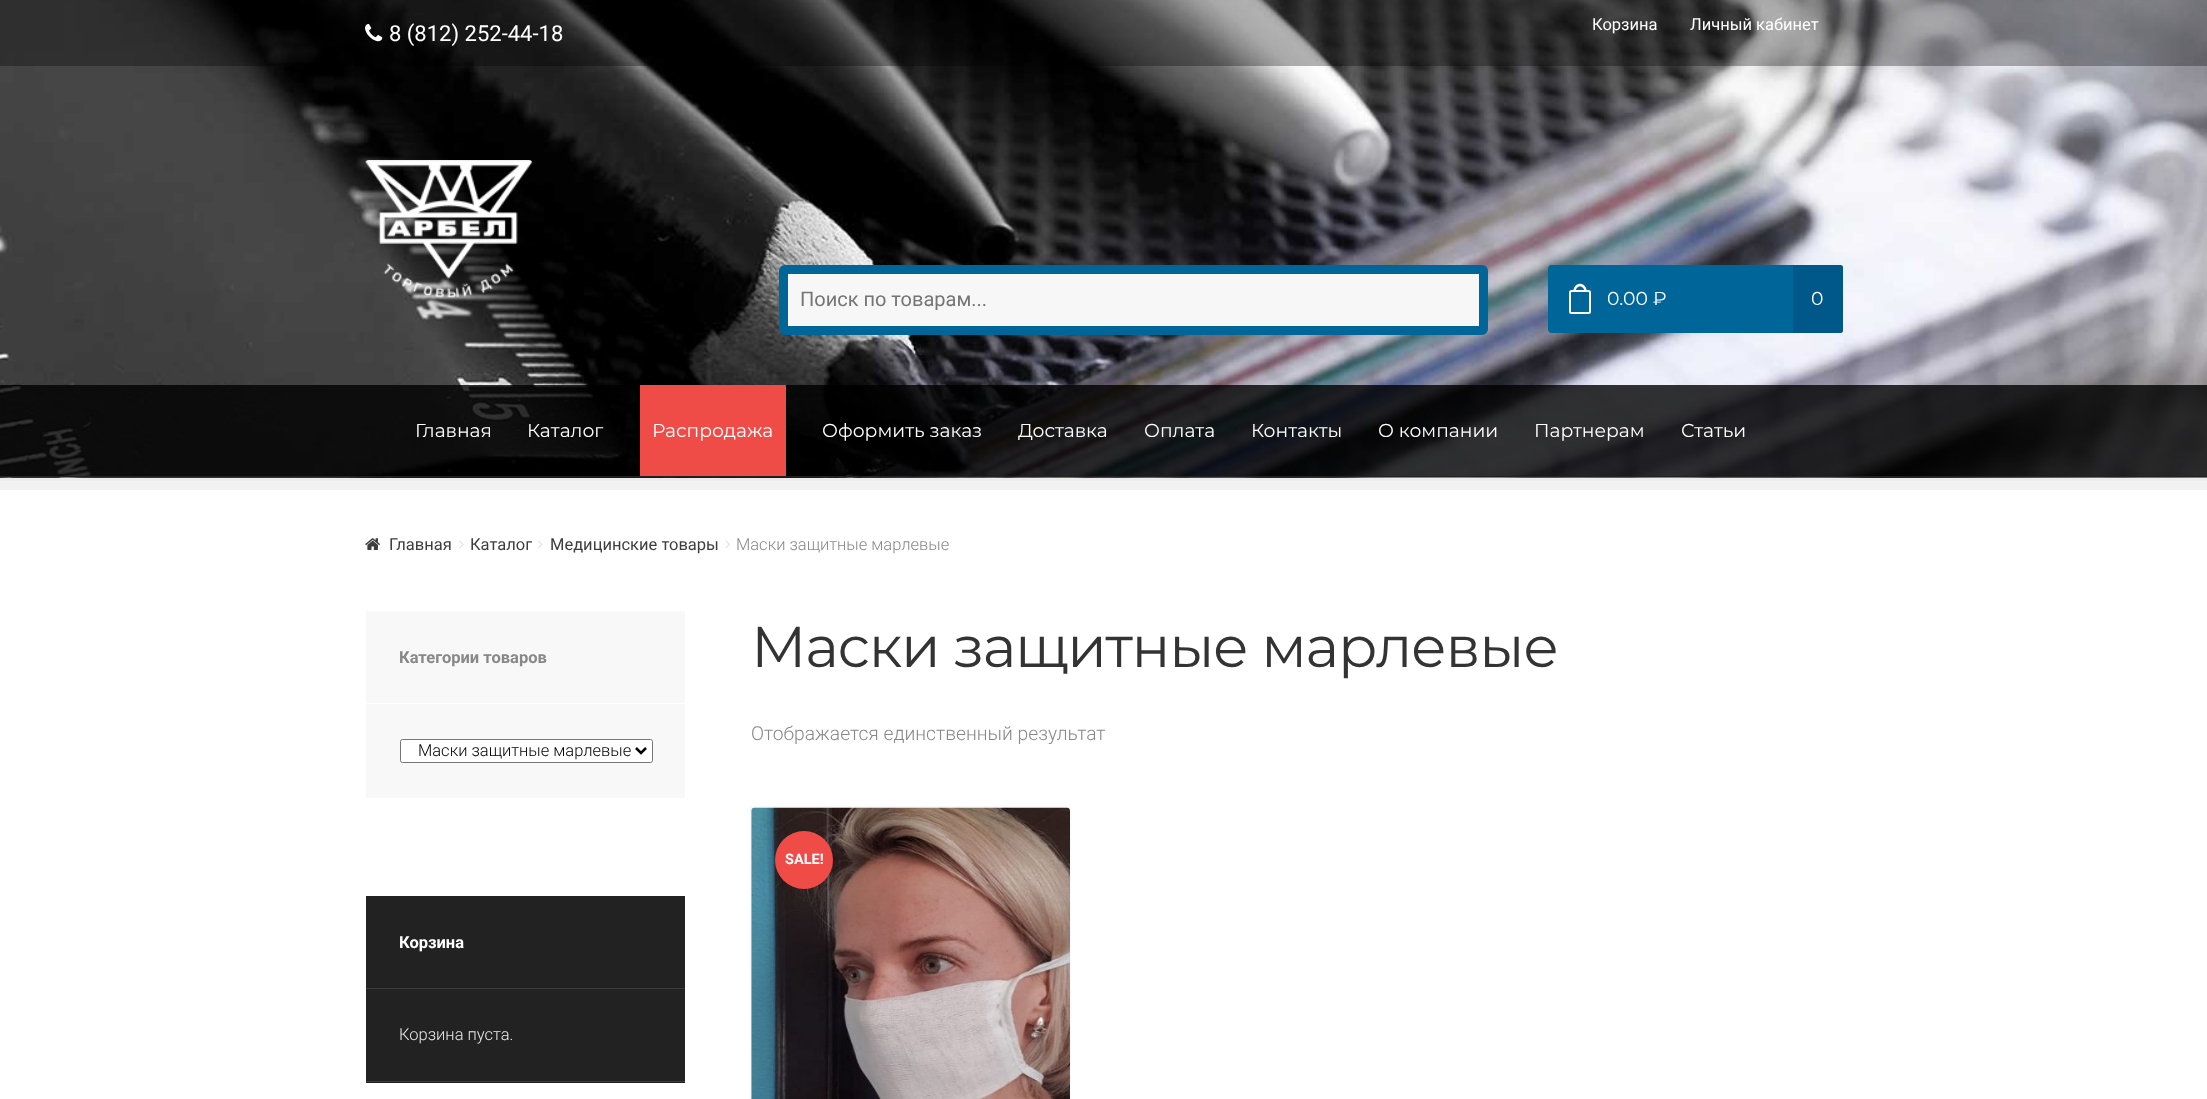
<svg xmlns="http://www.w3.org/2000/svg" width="2207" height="1099">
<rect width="100%" height="100%" fill="#fff"/>
<path d="M0 478v3h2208v-477v474z" fill="#f9f9f9"/>
<rect y="477" width="2207" height="1" fill="#333"/>
<image x="0" y="0" width="2207" height="478" href="media/1.png"/>
<rect y="476" width="2207" height="1" fill="#242424"/>
<rect width="2207" height="66" fill="#0000004d"/>
<image x="365" y="24" width="18" height="18" href="media/2.png"/>
<text x="389" y="41" style="font-family:Roboto;font-size:22px;fill:#fff">8 (812) 252-44-18</text>
<text x="1592" y="30" style="font-family:Roboto;font-size:16.5px;fill:#fff">Корзина</text>
<text x="1690" y="30" style="font-family:Roboto;font-size:16.5px;fill:#fff">Личный кабинет</text>
<image x="365" y="160" width="168" height="138" href="media/3.png"/>
<rect x="783.5" y="269.5" width="700" height="61" rx="1.5" fill="#f7f7f7" stroke="#069" stroke-width="9"/>
<text x="800" y="306" style="font-family:Roboto;font-size:20px;fill:#757575">Поиск по товарам...</text>
<rect x="1548" y="265" width="295" height="68" rx="4" fill="#069"/>
<path d="M1580 285c8.5 0 8.5 21 0 21c-8.5 0-8.5-21 0-21z" fill="none" stroke="#fff" stroke-width="2.5"/>
<rect x="1570" y="291" width="20" height="22" rx="1.5" fill="#069" stroke="#fff" stroke-width="2"/>
<text x="1607" y="305" style="font-family:Montserrat;font-size:18.75px;fill:#fff">0.00 ₽</text>
<path d="M1793 265h47.5c1.5 0 2.5 1 2.5 2.5v63c0 1.5-1 2.5-2.5 2.5h-47.5z" fill="#00578a"/>
<text x="1811" y="305" style="font-family:Montserrat;font-size:18.75px;fill:#fff">0</text>
<path d="M-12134 399v91h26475v-14h-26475z" fill="#0000000d"/>
<rect y="385" width="2207" height="91" fill="#000000cc"/>
<text x="415" y="437" style="font-family:Montserrat;font-size:18.75px;fill:#fff">Главная</text>
<text x="527" y="437" style="font-family:Montserrat;font-size:18.75px;fill:#fff">Каталог</text>
<rect x="640" y="385" width="146" height="91" fill="#ef4c47"/>
<text x="652" y="437" style="font-family:Montserrat;font-size:18.75px;fill:#fff">Распродажа</text>
<text x="822" y="437" style="font-family:Montserrat;font-size:18.75px;fill:#fff">Оформить заказ</text>
<text x="1018" y="437" style="font-family:Montserrat;font-size:18.75px;fill:#fff">Доставка</text>
<text x="1144" y="437" style="font-family:Montserrat;font-size:18.75px;fill:#fff">Оплата</text>
<text x="1251" y="437" style="font-family:Montserrat;font-size:18.75px;fill:#fff">Контакты</text>
<text x="1378" y="437" style="font-family:Montserrat;font-size:18.75px;fill:#fff">О компании</text>
<text x="1534" y="437" style="font-family:Montserrat;font-size:18.75px;fill:#fff">Партнерам</text>
<text x="1681" y="437" style="font-family:Montserrat;font-size:18.75px;fill:#fff">Статьи</text>
<image x="365" y="538" width="15" height="12" href="media/4.png"/>
<text x="389" y="550" style="font-family:Roboto;font-size:16.5px;fill:#3d3d3d">Главная</text>
<image x="459" y="540" width="5" height="9" href="media/5.png"/>
<text x="470" y="550" style="font-family:Roboto;font-size:16.5px;fill:#3d3d3d">Каталог</text>
<image x="538" y="540" width="5" height="9" href="media/6.png"/>
<text x="550" y="550" style="font-family:Roboto;font-size:16.5px;fill:#3d3d3d">Медицинские товары</text>
<image x="725" y="540" width="5" height="9" href="media/7.png"/>
<text x="736" y="550" style="font-family:Roboto;font-size:16.5px;font-weight:300;fill:#888">Маски защитные марлевые</text>
<rect x="366" y="611" width="319" height="187" fill="#f8f8f8"/>
<text x="399" y="663" style="font-family:Roboto;font-size:16.5px;font-weight:bold;fill:#888">Категории товаров</text>
<rect x="366" y="703" width="319" height="1" fill="#fff"/>
<rect x="400.5" y="739.5" width="252" height="23" rx="2" fill="#fff" stroke="#767676"/>
<path d="M636 748l5 5l5-5" fill="none" stroke="#000" stroke-width="2.5"/>
<text x="418" y="756" style="font-family:Roboto;font-size:16.5px;font-weight:300;fill:#000">Маски защитные марлевые</text>
<rect x="366" y="896" width="319" height="187" fill="#222"/>
<text x="399" y="948" style="font-family:Roboto;font-size:16.5px;font-weight:bold;fill:#fff">Корзина</text>
<rect x="366" y="988" width="319" height="1" fill="#3b3b3b"/>
<rect x="366" y="1081" width="319" height="1" fill="#3b3b3b"/>
<text x="399" y="1040" style="font-family:Roboto;font-size:16.5px;font-weight:300;fill:#e8e8e8">Корзина пуста.</text>
<text x="751" y="667" style="font-family:Montserrat;font-size:57.6px;letter-spacing:-1.25px;fill:#333">Маски защитные марлевые</text>
<text x="751" y="740" style="font-family:Roboto;font-size:19.25px;font-weight:300;fill:#888">Отображается единственный результат</text>
<rect x="750" y="806" width="321" height="293" fill="#f8f8f8"/>
<image x="751" y="807" width="319" height="292" href="media/8.png"/>
<circle cx="804" cy="860" r="29" fill="#ef4c47"/>
<text x="785" y="864" style="font-family:Roboto;font-size:14.5px;font-weight:bold;fill:#fff">SALE!</text>
</svg>
